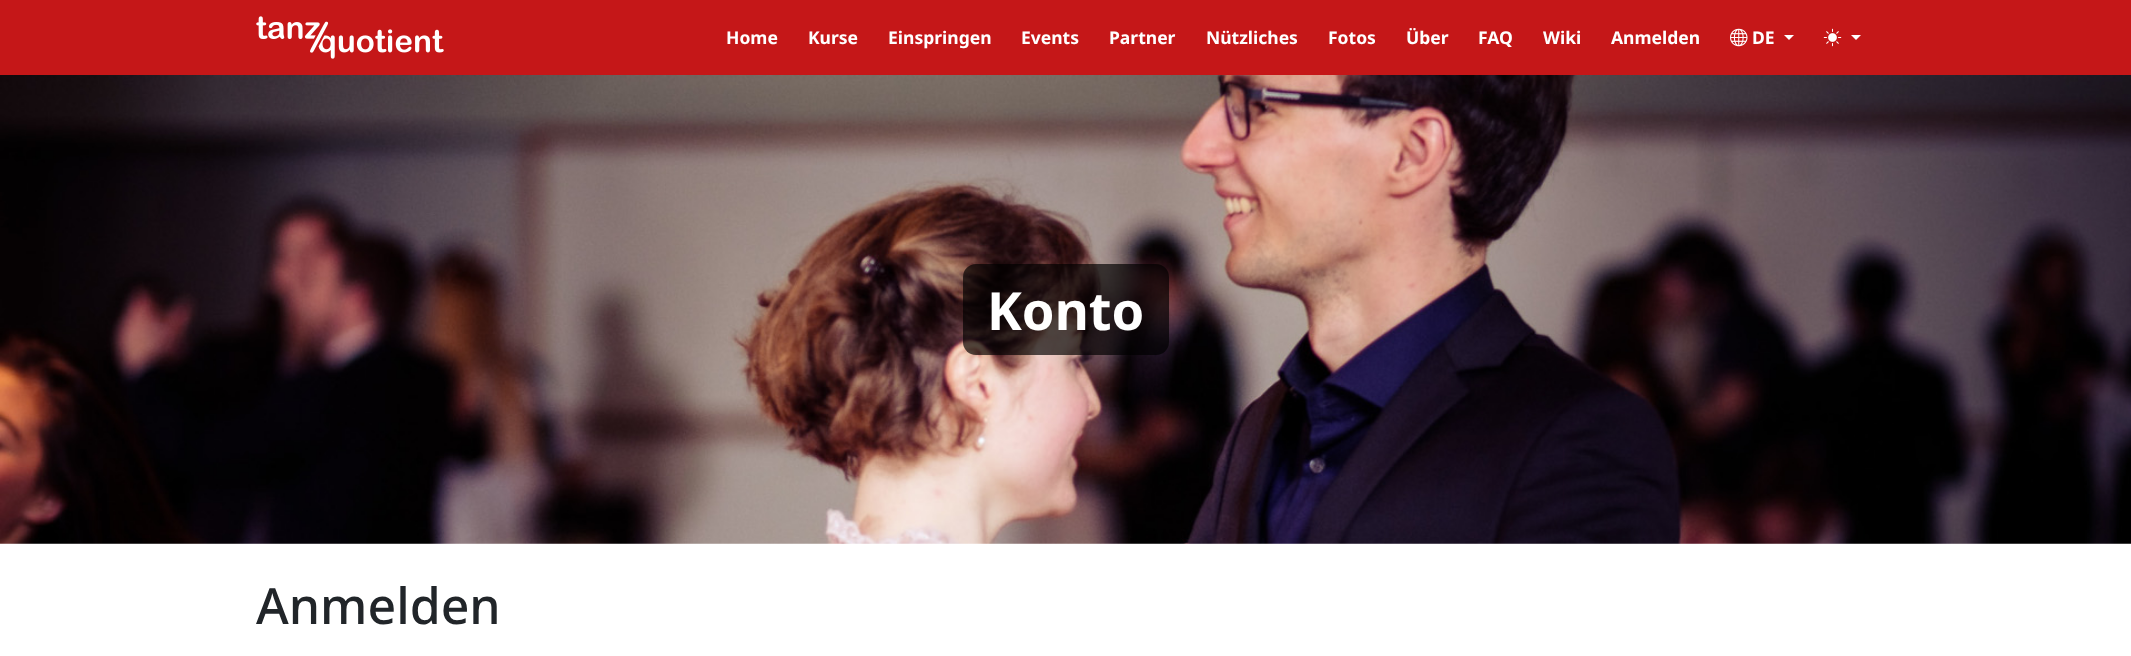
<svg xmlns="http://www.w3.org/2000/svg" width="2131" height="656">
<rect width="100%" height="100%" fill="#fff"/>
<rect width="2131" height="75" fill="#c51718"/>
<image x="256" y="16" width="188" height="43" href="media/1.png"/>
<text x="726" y="44" style="font-family:Noto Sans;font-size:17.5px;font-weight:bold;fill:#fff">Home</text>
<text x="808" y="44" style="font-family:Noto Sans;font-size:17.5px;font-weight:bold;fill:#fff">Kurse</text>
<text x="888" y="44" style="font-family:Noto Sans;font-size:17.5px;font-weight:bold;fill:#fff">Einspringen</text>
<text x="1021" y="44" style="font-family:Noto Sans;font-size:17.5px;font-weight:bold;fill:#fff">Events</text>
<text x="1109" y="44" style="font-family:Noto Sans;font-size:17.5px;font-weight:bold;fill:#fff">Partner</text>
<text x="1206" y="44" style="font-family:Noto Sans;font-size:17.5px;font-weight:bold;fill:#fff">Nützliches</text>
<text x="1328" y="44" style="font-family:Noto Sans;font-size:17.5px;font-weight:bold;fill:#fff">Fotos</text>
<text x="1406" y="44" style="font-family:Noto Sans;font-size:17.5px;font-weight:bold;fill:#fff">Über</text>
<text x="1478" y="44" style="font-family:Noto Sans;font-size:17.5px;font-weight:bold;fill:#fff">FAQ</text>
<text x="1543" y="44" style="font-family:Noto Sans;font-size:17.5px;font-weight:bold;fill:#fff">Wiki</text>
<text x="1611" y="44" style="font-family:Noto Sans;font-size:17.5px;font-weight:bold;fill:#fff">Anmelden</text>
<image x="1730" y="28" width="18" height="19" href="media/2.png"/>
<text x="1752" y="44" style="font-family:Noto Sans;font-size:17.5px;font-weight:bold;fill:#fff">DE</text>
<path d="M1784 35h10l-5 5z" fill="#fff"/>
<image x="1823" y="28" width="19" height="19" href="media/3.png"/>
<path d="M1851 35h10l-5 5z" fill="#fff"/>
<image x="0" y="75" width="2131" height="469" href="media/4.png"/>
<rect x="963" y="264" width="206" height="91" rx="13" fill="#000000ab"/>
<text x="987" y="330" style="font-family:Noto Sans;font-size:52.5px;font-weight:bold;fill:#fff">Konto</text>
<text x="256" y="624" style="font-family:Noto Sans;font-size:50px;font-weight:500;fill:#212529">Anmelden</text>
</svg>
